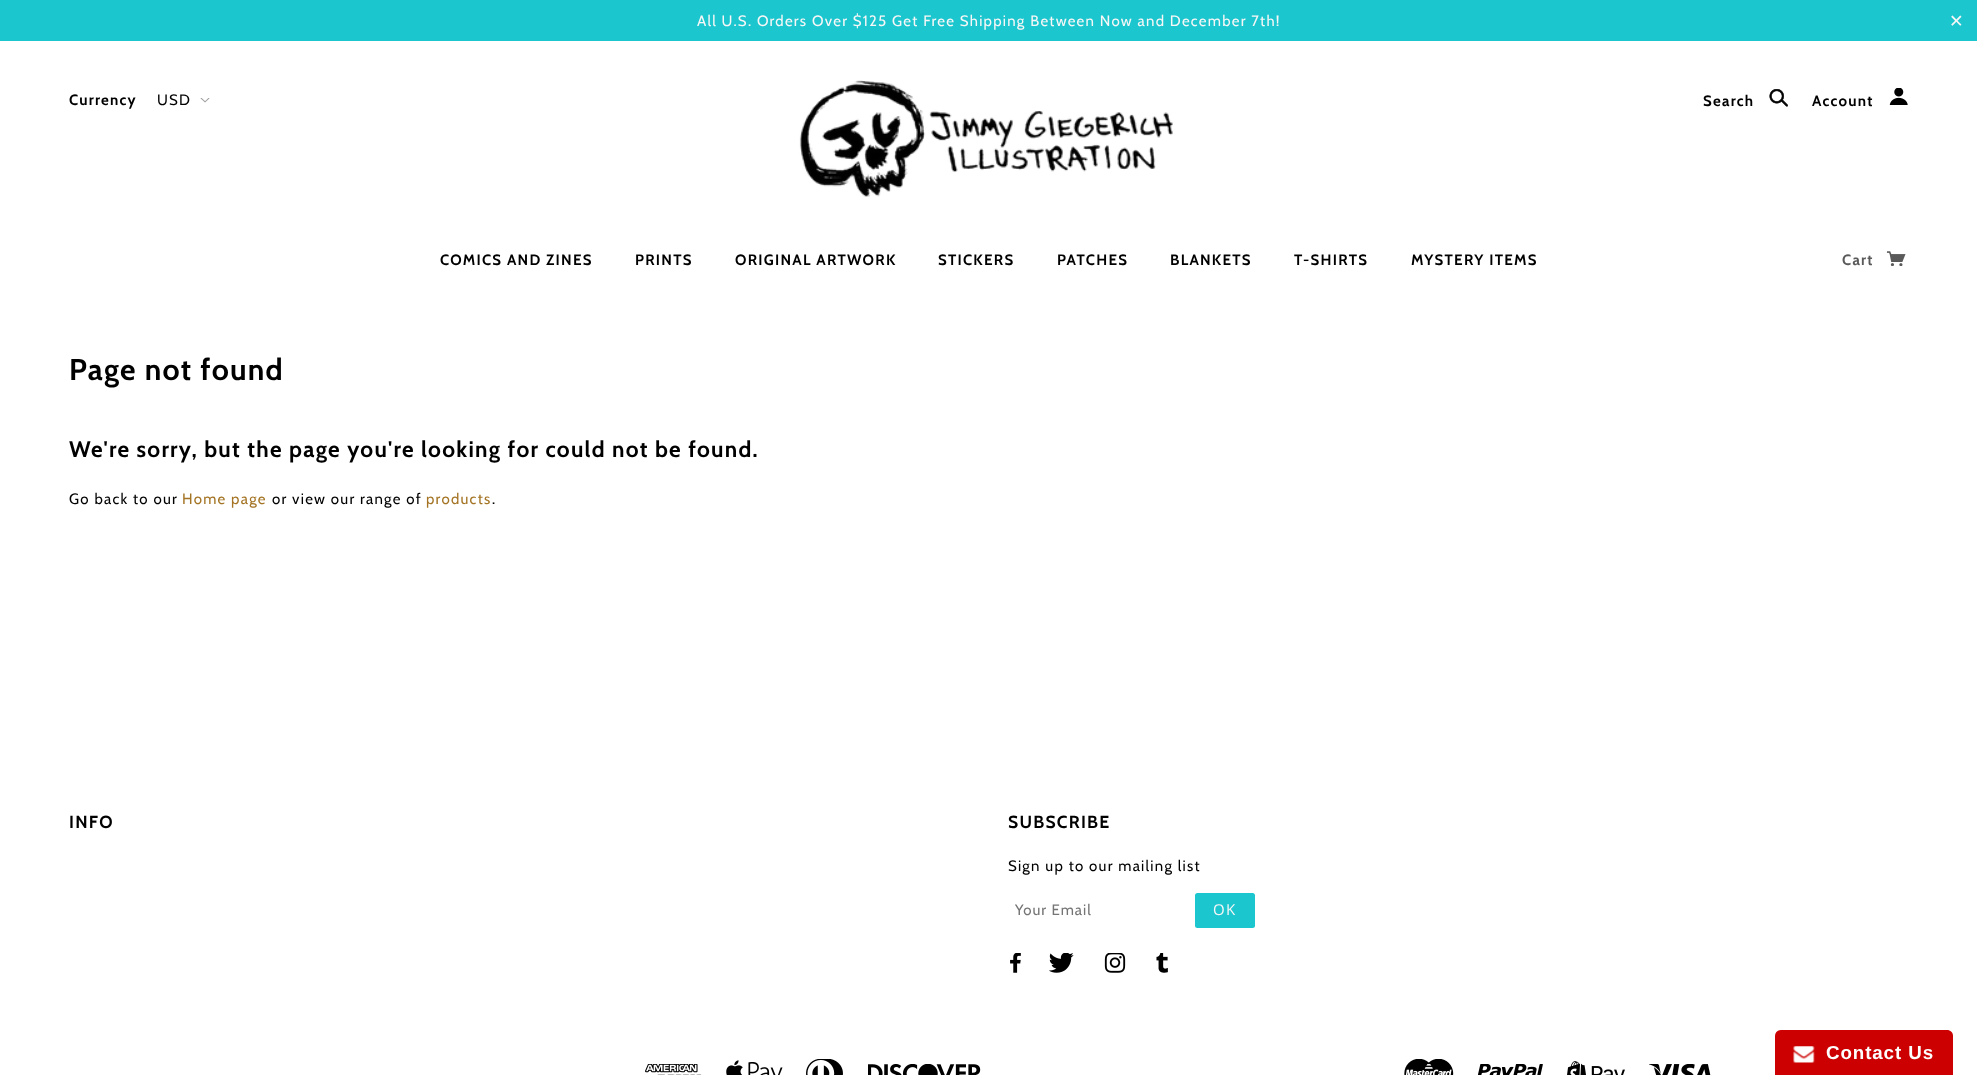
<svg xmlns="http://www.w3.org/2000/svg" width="1977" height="1075">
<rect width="100%" height="100%" fill="#fff"/>
<rect width="1977" height="41" fill="#1bc6ce"/>
<text x="697" y="26" style="font-family:Cabin;font-size:15px;letter-spacing:1.25px;fill:#f7f7f7">All U.S. Orders Over $125 Get Free Shipping Between Now and December 7th!</text>
<text x="1949" y="27" style="font-family:DejaVu Sans;font-size:17.5px;letter-spacing:1.25px;fill:#f7f7f7">✕</text>
<text x="69" y="105" style="font-family:Cabin;font-size:15px;font-weight:bold;letter-spacing:1.25px;fill:#000">Currency</text>
<image x="200" y="98" width="10" height="5" href="media/1.png"/>
<text x="157" y="105" style="font-family:Cabin;font-size:15px;letter-spacing:1.25px;fill:#000">USD</text>
<image x="799" y="80" width="374" height="117" href="media/2.png"/>
<text x="1703" y="106" style="font-family:Cabin;font-size:15px;font-weight:bold;letter-spacing:1.25px;fill:#000">Search</text>
<image x="1769" y="89" width="19" height="18" href="media/3.png"/>
<text x="1812" y="106" style="font-family:Cabin;font-size:15px;font-weight:bold;letter-spacing:1.25px;fill:#000">Account</text>
<image x="1889" y="88" width="19" height="17" href="media/4.png"/>
<text x="440" y="265" style="font-family:Cabin;font-size:15px;font-weight:bold;letter-spacing:1.25px;fill:#000">COMICS AND ZINES</text>
<text x="635" y="265" style="font-family:Cabin;font-size:15px;font-weight:bold;letter-spacing:1.25px;fill:#000">PRINTS</text>
<text x="735" y="265" style="font-family:Cabin;font-size:15px;font-weight:bold;letter-spacing:1.25px;fill:#000">ORIGINAL ARTWORK</text>
<text x="938" y="265" style="font-family:Cabin;font-size:15px;font-weight:bold;letter-spacing:1.25px;fill:#000">STICKERS</text>
<text x="1057" y="265" style="font-family:Cabin;font-size:15px;font-weight:bold;letter-spacing:1.25px;fill:#000">PATCHES</text>
<text x="1170" y="265" style="font-family:Cabin;font-size:15px;font-weight:bold;letter-spacing:1.25px;fill:#000">BLANKETS</text>
<text x="1294" y="265" style="font-family:Cabin;font-size:15px;font-weight:bold;letter-spacing:1.25px;fill:#000">T-SHIRTS</text>
<text x="1411" y="265" style="font-family:Cabin;font-size:15px;font-weight:bold;letter-spacing:1.25px;fill:#000">MYSTERY ITEMS</text>
<text x="1842" y="265" style="font-family:Cabin;font-size:15px;font-weight:bold;letter-spacing:1.25px;fill:#5a5a5a">Cart</text>
<image x="1886" y="251" width="20" height="15" href="media/5.png"/>
<text x="69" y="380" style="font-family:Cabin;font-size:30px;font-weight:bold;letter-spacing:1.25px;fill:#000">Page not found</text>
<text x="69" y="457" style="font-family:Cabin;font-size:22.5px;font-weight:bold;letter-spacing:1.25px;fill:#000">We're sorry, but the page you're looking for could not be found.</text>
<text x="69" y="504" style="font-family:Cabin;font-size:15px;letter-spacing:1.25px;fill:#000">Go back to our</text>
<text x="182" y="504" style="font-family:Cabin;font-size:15px;letter-spacing:1.25px;fill:#a47424">Home page</text>
<text x="272" y="504" style="font-family:Cabin;font-size:15px;letter-spacing:1.25px;fill:#000">or view our range of</text>
<text x="426" y="504" style="font-family:Cabin;font-size:15px;letter-spacing:1.25px;fill:#a47424">products</text>
<text x="492" y="504" style="font-family:Cabin;font-size:15px;letter-spacing:1.25px;fill:#000">.</text>
<text x="69" y="828" style="font-family:Cabin;font-size:17.5px;font-weight:bold;letter-spacing:1.25px;fill:#000">INFO</text>
<text x="1008" y="828" style="font-family:Cabin;font-size:17.5px;font-weight:bold;letter-spacing:1.25px;fill:#000">SUBSCRIBE</text>
<text x="1008" y="871" style="font-family:Cabin;font-size:15px;letter-spacing:1.25px;fill:#000">Sign up to our mailing list</text>
<text x="1015" y="915" style="font-family:Cabin;font-size:15px;letter-spacing:1px;fill:#757575">Your Email</text>
<rect x="1195" y="893" width="60" height="35" rx="2.5" fill="#1bc6ce"/>
<text x="1213" y="915" style="font-family:Open Sans;font-size:15px;letter-spacing:1.25px;fill:#f7f7f7">OK</text>
<image x="1010" y="953" width="11" height="20" href="media/6.png"/>
<image x="1049" y="953" width="25" height="20" href="media/7.png"/>
<image x="1104" y="953" width="22" height="20" href="media/8.png"/>
<image x="1156" y="953" width="12" height="20" href="media/9.png"/>
<image x="645" y="1064" width="57" height="11" href="media/10.png"/>
<image x="726" y="1060" width="57" height="15" href="media/11.png"/>
<image x="806" y="1059" width="37" height="16" href="media/12.png"/>
<image x="868" y="1064" width="113" height="11" href="media/13.png"/>
<image x="1404" y="1059" width="50" height="16" href="media/14.png"/>
<image x="1478" y="1064" width="65" height="11" href="media/15.png"/>
<image x="1567" y="1061" width="58" height="14" href="media/16.png"/>
<image x="1649" y="1064" width="62" height="11" href="media/17.png"/>
<path d="M1781 1030h166c3.5 0 6 2.5 6 6v39h-178v-39c0-3.5 2.5-6 6-6z" fill="#c00"/>
<image x="1793" y="1046" width="22" height="17" href="media/18.png"/>
<text x="1826" y="1059" style="font-family:Liberation Sans;font-size:18.75px;font-weight:bold;letter-spacing:0.9px;fill:#fff">Contact Us</text>
</svg>
